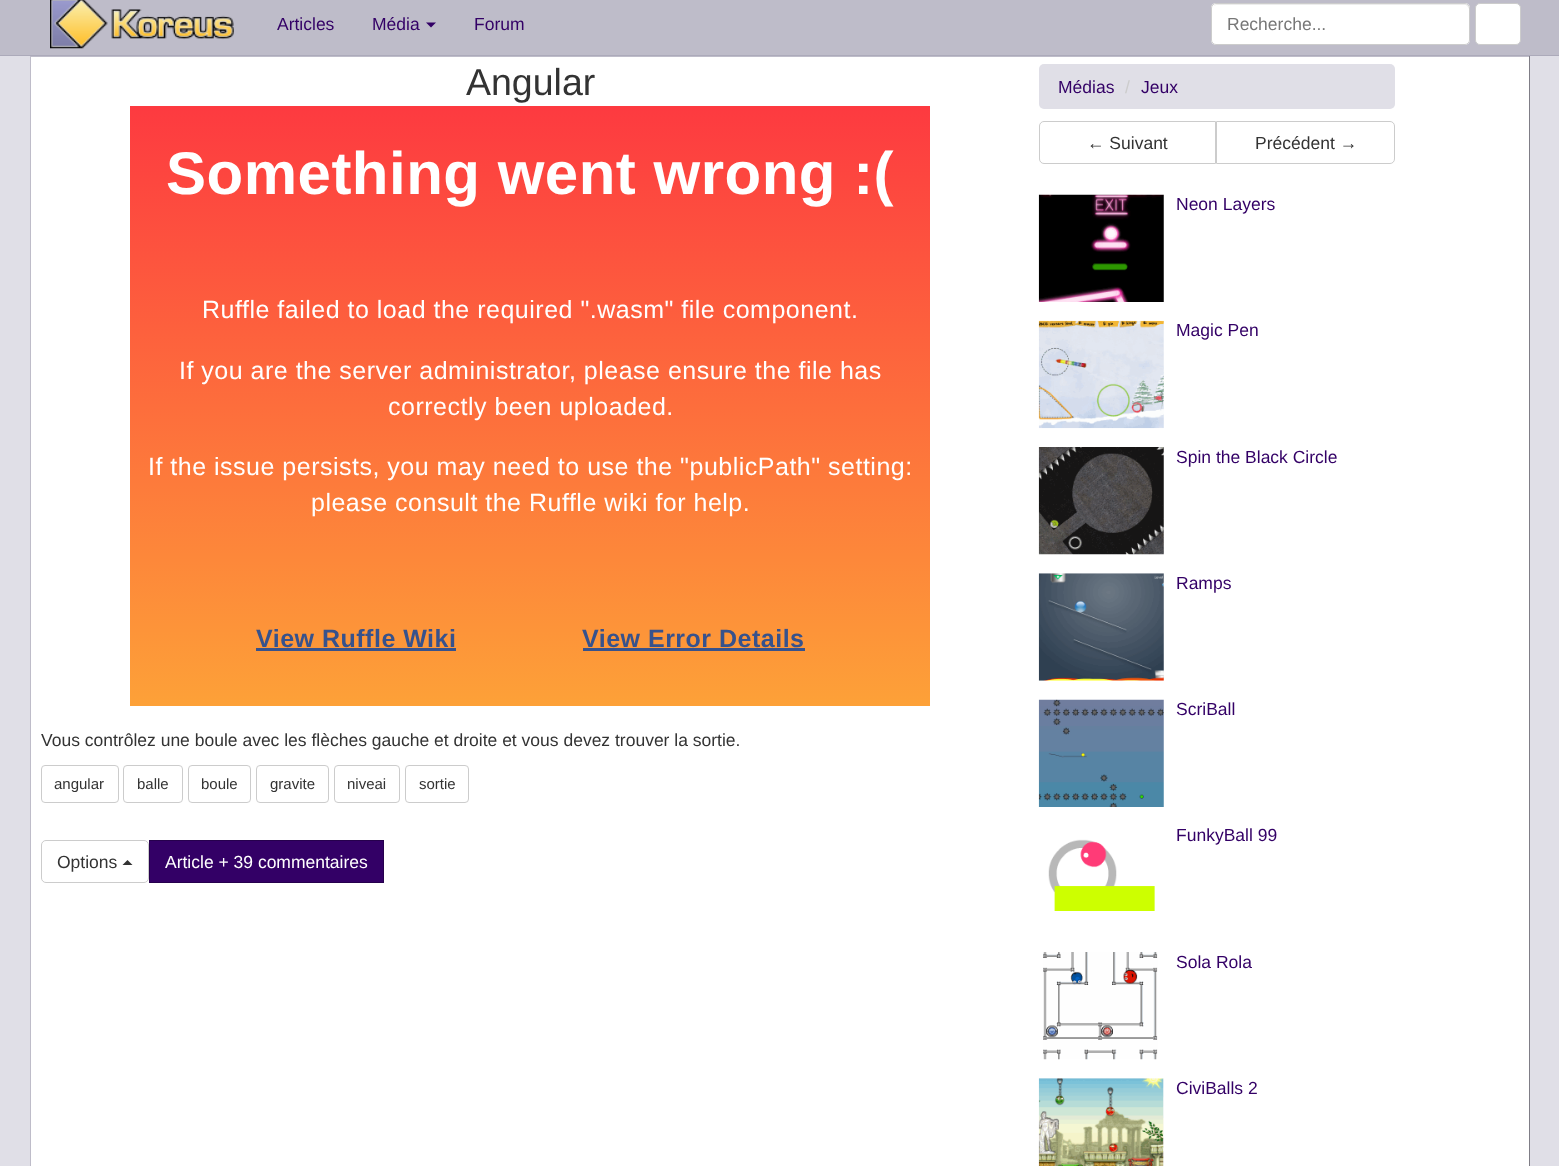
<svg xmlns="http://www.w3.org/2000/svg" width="1559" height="1166">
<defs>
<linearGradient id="g1" gradientUnits="userSpaceOnUse" x1="530" y1="106" x2="530" y2="706"><stop offset="0" stop-color="#fd3a40"/><stop offset="1" stop-color="#fda138"/></linearGradient>
</defs>
<rect width="100%" height="100%" fill="#e0dfe7"/>
<rect width="1559" height="55" fill="#bebcc9"/>
<rect y="55" width="1559" height="1" fill="#acaaba"/>
<image x="50" y="0" width="184" height="49" href="media/1.png"/>
<text x="277" y="30" style="font-family:Liberation Sans;font-size:17.5px;fill:#306">Articles</text>
<text x="372" y="30" style="font-family:Liberation Sans;font-size:17.5px;fill:#306">Média</text>
<path d="M426 22.5h10l-5 5z" fill="#306"/>
<text x="474" y="30" style="font-family:Liberation Sans;font-size:17.5px;fill:#306">Forum</text>
<rect x="1211" y="3" width="259" height="42" rx="5" fill="#fff"/>
<path d="M1216 5h250l2 2l1 2v-1c0-2-2-4-4-4h-248c-1 0-3 1-3 2z" fill="#ececec"/>
<rect x="1211.5" y="3.5" width="258" height="41" rx="4.5" fill="none" stroke="#ccc"/>
<text x="1227" y="30" style="font-family:Liberation Sans;font-size:17.5px;fill:#777">Recherche...</text>
<rect x="1475.5" y="3.5" width="45" height="41" rx="4.5" fill="#fff" stroke="#ccc"/>
<rect x="31" y="57" width="1498" height="1109" fill="#fff"/>
<rect x="30" y="56" width="1500" height="1" fill="#bebcc9"/>
<rect x="1529" y="56" width="1" height="1110" fill="#7f7d86"/>
<rect x="30" y="56" width="1" height="1110" fill="#bebcc9"/>
<text x="466" y="95" style="font-family:Liberation Sans;font-size:37.5px;fill:#333">Angular</text>
<rect x="130" y="106" width="800" height="600" fill="url(#g1)"/>
<text x="166" y="194" style="font-family:Liberation Sans;font-size:60px;font-weight:bold;letter-spacing:0.5px;fill:#fff">Something went wrong :(</text>
<text x="202" y="318" style="font-family:Liberation Sans;font-size:25px;letter-spacing:0.5px;fill:#fff">Ruffle failed to load the required ".wasm" file component.</text>
<text x="179" y="379" style="font-family:Liberation Sans;font-size:25px;letter-spacing:0.5px;fill:#fff">If you are the server administrator, please ensure the file has</text>
<text x="388" y="415" style="font-family:Liberation Sans;font-size:25px;letter-spacing:0.5px;fill:#fff">correctly been uploaded.</text>
<text x="148" y="475" style="font-family:Liberation Sans;font-size:25px;letter-spacing:0.5px;fill:#fff">If the issue persists, you may need to use the "publicPath" setting:</text>
<text x="311" y="511" style="font-family:Liberation Sans;font-size:25px;letter-spacing:0.5px;fill:#fff">please consult the Ruffle wiki for help.</text>
<text x="256" y="647" style="font-family:Liberation Sans;font-size:25px;font-weight:bold;letter-spacing:0.5px;fill:#37528c">View Ruffle Wiki</text>
<rect x="256" y="648" width="200" height="3" fill="#37528c"/>
<text x="582" y="647" style="font-family:Liberation Sans;font-size:25px;font-weight:bold;letter-spacing:0.5px;fill:#37528c">View Error Details</text>
<rect x="583" y="648" width="222" height="3" fill="#37528c"/>
<text x="41" y="746" style="font-family:Liberation Sans;font-size:17.5px;fill:#333">Vous contrôlez une boule avec les flèches gauche et droite et vous devez trouver la sortie.</text>
<rect x="41.5" y="765.5" width="77" height="37" rx="3.5" fill="none" stroke="#ccc"/>
<text x="54" y="789" style="font-family:Liberation Sans;font-size:15px;fill:#333">angular</text>
<rect x="123.5" y="765.5" width="59" height="37" rx="3.5" fill="none" stroke="#ccc"/>
<text x="137" y="789" style="font-family:Liberation Sans;font-size:15px;fill:#333">balle</text>
<rect x="188.5" y="765.5" width="62" height="37" rx="3.5" fill="none" stroke="#ccc"/>
<text x="201" y="789" style="font-family:Liberation Sans;font-size:15px;fill:#333">boule</text>
<rect x="256.5" y="765.5" width="72" height="37" rx="3.5" fill="none" stroke="#ccc"/>
<text x="270" y="789" style="font-family:Liberation Sans;font-size:15px;fill:#333">gravite</text>
<rect x="334.5" y="765.5" width="65" height="37" rx="3.5" fill="none" stroke="#ccc"/>
<text x="347" y="789" style="font-family:Liberation Sans;font-size:15px;fill:#333">niveai</text>
<rect x="405.5" y="765.5" width="63" height="37" rx="3.5" fill="none" stroke="#ccc"/>
<text x="419" y="789" style="font-family:Liberation Sans;font-size:15px;fill:#333">sortie</text>
<rect x="41.5" y="840.5" width="107" height="42" rx="4.5" fill="none" stroke="#ccc"/>
<text x="57" y="868" style="font-family:Liberation Sans;font-size:17.5px;fill:#333">Options</text>
<path d="M132.5 865h-10l5-5z" fill="#333"/>
<rect x="149.5" y="840.5" width="234" height="42" fill="#306" stroke="#26004d"/>
<text x="165" y="868" style="font-family:Liberation Sans;font-size:17.5px;fill:#fff">Article + 39 commentaires</text>
<rect x="1039" y="64" width="356" height="45" rx="5" fill="#e0dfe7"/>
<text x="1058" y="93" style="font-family:Liberation Sans;font-size:17.5px;fill:#306">Médias</text>
<text x="1125" y="93" style="font-family:Liberation Sans;font-size:17.5px;fill:#ccc">/</text>
<text x="1141" y="93" style="font-family:Liberation Sans;font-size:17.5px;fill:#306">Jeux</text>
<path d="M1044 121.5h171.5v42h-171.5c-2.5 0-4.5-2-4.5-4.5v-33c0-2.5 2-4.5 4.5-4.5z" fill="none" stroke="#ccc"/>
<text x="1087" y="149" style="font-family:Liberation Sans;font-size:17.5px;fill:#333">← Suivant</text>
<path d="M1216.5 121.5h173.5c2.5 0 4.5 2 4.5 4.5v33c0 2.5-2 4.5-4.5 4.5h-173.5z" fill="none" stroke="#ccc"/>
<text x="1255" y="149" style="font-family:Liberation Sans;font-size:17.5px;fill:#333">Précédent →</text>
<image x="1038" y="194" width="126" height="108" href="media/2.png"/>
<text x="1176" y="210" style="font-family:Liberation Sans;font-size:17.5px;fill:#306">Neon Layers</text>
<image x="1038" y="320" width="126" height="109" href="media/3.png"/>
<text x="1176" y="336" style="font-family:Liberation Sans;font-size:17.5px;fill:#306">Magic Pen</text>
<image x="1038" y="447" width="126" height="108" href="media/4.png"/>
<text x="1176" y="463" style="font-family:Liberation Sans;font-size:17.5px;fill:#306">Spin the Black Circle</text>
<image x="1038" y="573" width="126" height="108" href="media/5.png"/>
<text x="1176" y="589" style="font-family:Liberation Sans;font-size:17.5px;fill:#306">Ramps</text>
<image x="1038" y="699" width="126" height="108" href="media/6.png"/>
<text x="1176" y="715" style="font-family:Liberation Sans;font-size:17.5px;fill:#306">ScriBall</text>
<text x="1176" y="841" style="font-family:Liberation Sans;font-size:17.5px;fill:#306">FunkyBall 99</text>
<image x="1048" y="839" width="107" height="72" href="media/7.png"/>
<image x="1043" y="952" width="115" height="108" href="media/8.png"/>
<text x="1176" y="968" style="font-family:Liberation Sans;font-size:17.5px;fill:#306">Sola Rola</text>
<image x="1038" y="1078" width="126" height="88" href="media/9.png"/>
<text x="1176" y="1094" style="font-family:Liberation Sans;font-size:17.5px;fill:#306">CiviBalls 2</text>
</svg>
